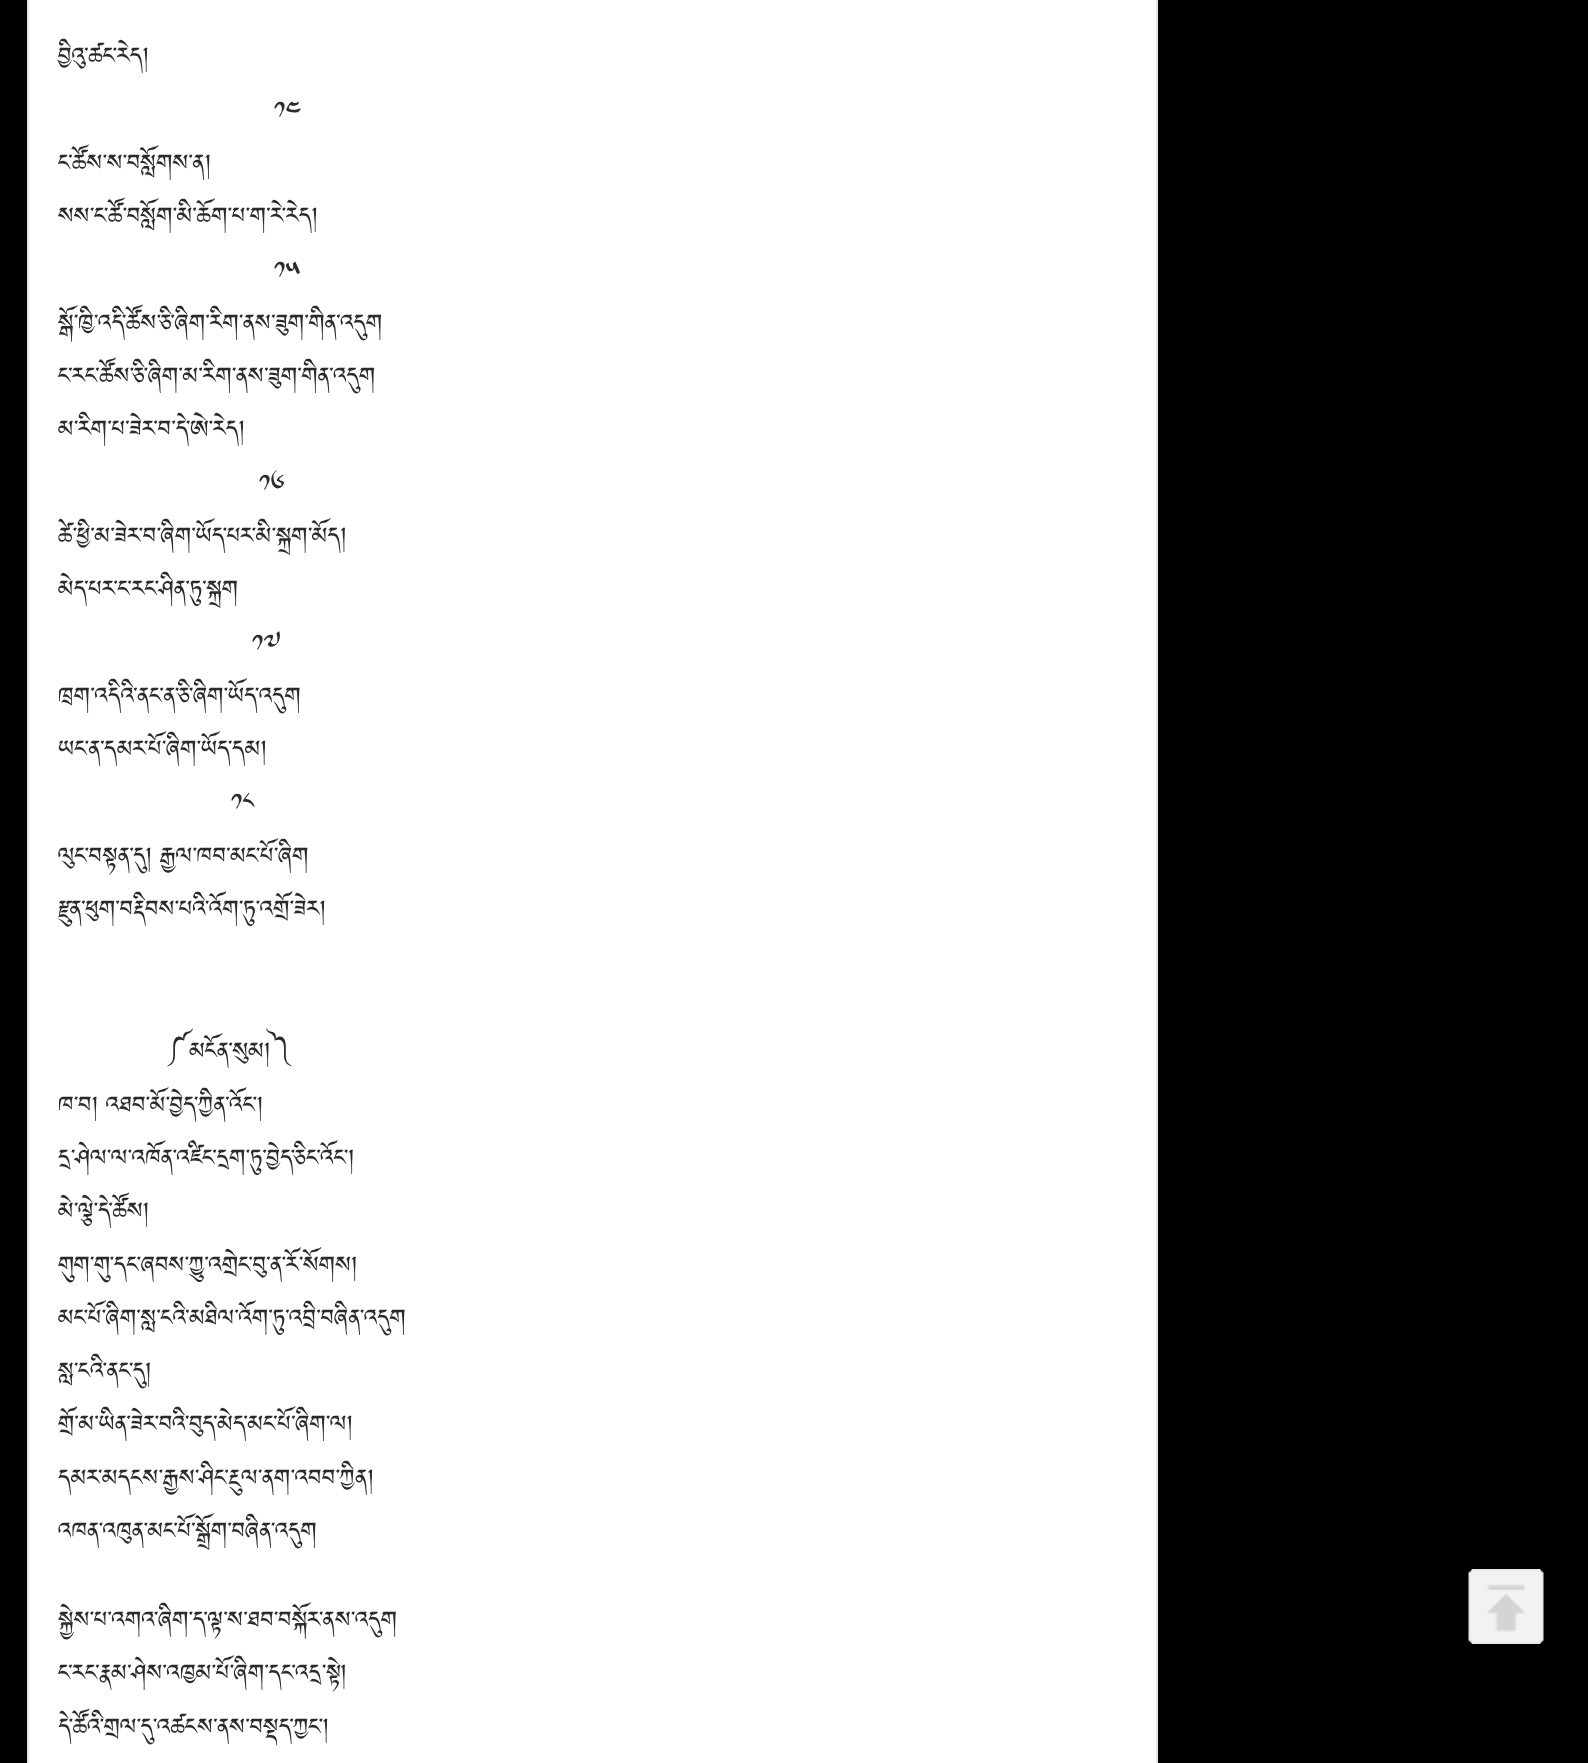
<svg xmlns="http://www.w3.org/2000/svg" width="1588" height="1763">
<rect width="100%" height="100%" fill="#000"/>
<rect x="28" y="-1" width="1129" height="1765" fill="#fff" stroke="#e6e6e6" stroke-width="2"/>
<text x="58" y="69" style="font-family:Jomolhari;font-size:28.75px;fill:#2b2b2b">བྱིའུ་ཚང་རེད།</text>
<text x="274" y="123" style="font-family:Jomolhari;font-size:28.75px;fill:#2b2b2b">༡༤</text>
<text x="58" y="176" style="font-family:Jomolhari;font-size:28.75px;fill:#2b2b2b">ང་ཚོས་ས་བསློགས་ན།</text>
<text x="58" y="229" style="font-family:Jomolhari;font-size:28.75px;fill:#2b2b2b">སས་ང་ཚོ་བསློག་མི་ཆོག་པ་ག་རེ་རེད།</text>
<text x="274" y="283" style="font-family:Jomolhari;font-size:28.75px;fill:#2b2b2b">༡༥</text>
<text x="58" y="336" style="font-family:Jomolhari;font-size:28.75px;fill:#2b2b2b">སྒོ་ཁྱི་འདི་ཚོས་ཅི་ཞིག་རིག་ནས་ཟུག་གིན་འདུག</text>
<text x="58" y="389" style="font-family:Jomolhari;font-size:28.75px;fill:#2b2b2b">ང་རང་ཚོས་ཅི་ཞིག་མ་རིག་ནས་ཟུག་གིན་འདུག</text>
<text x="58" y="442" style="font-family:Jomolhari;font-size:28.75px;fill:#2b2b2b">མ་རིག་པ་ཟེར་བ་དེ་ཨེ་རེད།</text>
<text x="259" y="496" style="font-family:Jomolhari;font-size:28.75px;fill:#2b2b2b">༡༦</text>
<text x="58" y="549" style="font-family:Jomolhari;font-size:28.75px;fill:#2b2b2b">ཚེ་ཕྱི་མ་ཟེར་བ་ཞིག་ཡོད་པར་མི་སྐྲག་མོད།</text>
<text x="58" y="602" style="font-family:Jomolhari;font-size:28.75px;fill:#2b2b2b">མེད་པར་ང་རང་ཤིན་ཏུ་སྐྲག</text>
<text x="252" y="656" style="font-family:Jomolhari;font-size:28.75px;fill:#2b2b2b">༡༧</text>
<text x="58" y="709" style="font-family:Jomolhari;font-size:28.75px;fill:#2b2b2b">ཁྲག་འདིའི་ནང་ན་ཅི་ཞིག་ཡོད་འདུག</text>
<text x="58" y="762" style="font-family:Jomolhari;font-size:28.75px;fill:#2b2b2b">ཡང་ན་དམར་པོ་ཞིག་ཡོད་དམ།</text>
<text x="231" y="815" style="font-family:Jomolhari;font-size:28.75px;fill:#2b2b2b">༡༨</text>
<text x="58" y="869" word-spacing="-1" style="font-family:Jomolhari;font-size:28.75px;fill:#2b2b2b">ལུང་བསྟན་དུ། རྒྱལ་ཁབ་མང་པོ་ཞིག</text>
<text x="58" y="922" style="font-family:Jomolhari;font-size:28.75px;fill:#2b2b2b">རྫུན་ཕུག་བརྡིབས་པའི་འོག་ཏུ་འགྲོ་ཟེར།</text>
<text x="166" y="1064" style="font-family:Jomolhari;font-size:28.75px;fill:#2b2b2b">༼མངོན་སུམ།༽</text>
<text x="58" y="1118" word-spacing="-1" style="font-family:Jomolhari;font-size:28.75px;fill:#2b2b2b">ཁ་བ། འཐབ་མོ་བྱེད་ཀྱིན་འོང་།</text>
<text x="58" y="1171" style="font-family:Jomolhari;font-size:28.75px;fill:#2b2b2b">དྲ་ཤེལ་ལ་འཁོན་འཛིང་དྲག་ཏུ་བྱེད་ཅིང་འོང་།</text>
<text x="58" y="1224" style="font-family:Jomolhari;font-size:28.75px;fill:#2b2b2b">མེ་ལྕེ་དེ་ཚོས།</text>
<text x="58" y="1278" style="font-family:Jomolhari;font-size:28.75px;fill:#2b2b2b">གུག་གུ་དང་ཞབས་ཀྱུ་འགྲེང་བུ་ན་རོ་སོགས།</text>
<text x="58" y="1331" style="font-family:Jomolhari;font-size:28.75px;fill:#2b2b2b">མང་པོ་ཞིག་སླ་ངའི་མཐིལ་འོག་ཏུ་འབྲི་བཞིན་འདུག</text>
<text x="58" y="1384" style="font-family:Jomolhari;font-size:28.75px;fill:#2b2b2b">སླ་ངའི་ནང་དུ།</text>
<text x="58" y="1437" style="font-family:Jomolhari;font-size:28.75px;fill:#2b2b2b">གྲོ་མ་ཡིན་ཟེར་བའི་བུད་མེད་མང་པོ་ཞིག་ལ།</text>
<text x="58" y="1491" style="font-family:Jomolhari;font-size:28.75px;fill:#2b2b2b">དམར་མདངས་རྒྱས་ཤིང་རྔུལ་ནག་འབབ་ཀྱིན།</text>
<text x="58" y="1544" style="font-family:Jomolhari;font-size:28.75px;fill:#2b2b2b">འཁན་འཁུན་མང་པོ་སྒྲོག་བཞིན་འདུག</text>
<text x="58" y="1633" style="font-family:Jomolhari;font-size:28.75px;fill:#2b2b2b">སྐྱེས་པ་འགའ་ཞིག་ད་ལྟ་ས་ཐབ་བསྐོར་ནས་འདུག</text>
<text x="58" y="1686" style="font-family:Jomolhari;font-size:28.75px;fill:#2b2b2b">ང་རང་རྣམ་ཤེས་འཁྱམ་པོ་ཞིག་དང་འདྲ་སྟེ།</text>
<text x="58" y="1740" style="font-family:Jomolhari;font-size:28.75px;fill:#2b2b2b">དེ་ཚོའི་གྲལ་དུ་འཚངས་ནས་བསྡད་ཀྱང་།</text>
<image x="1468" y="1569" width="76" height="75" href="media/1.png"/>
</svg>
